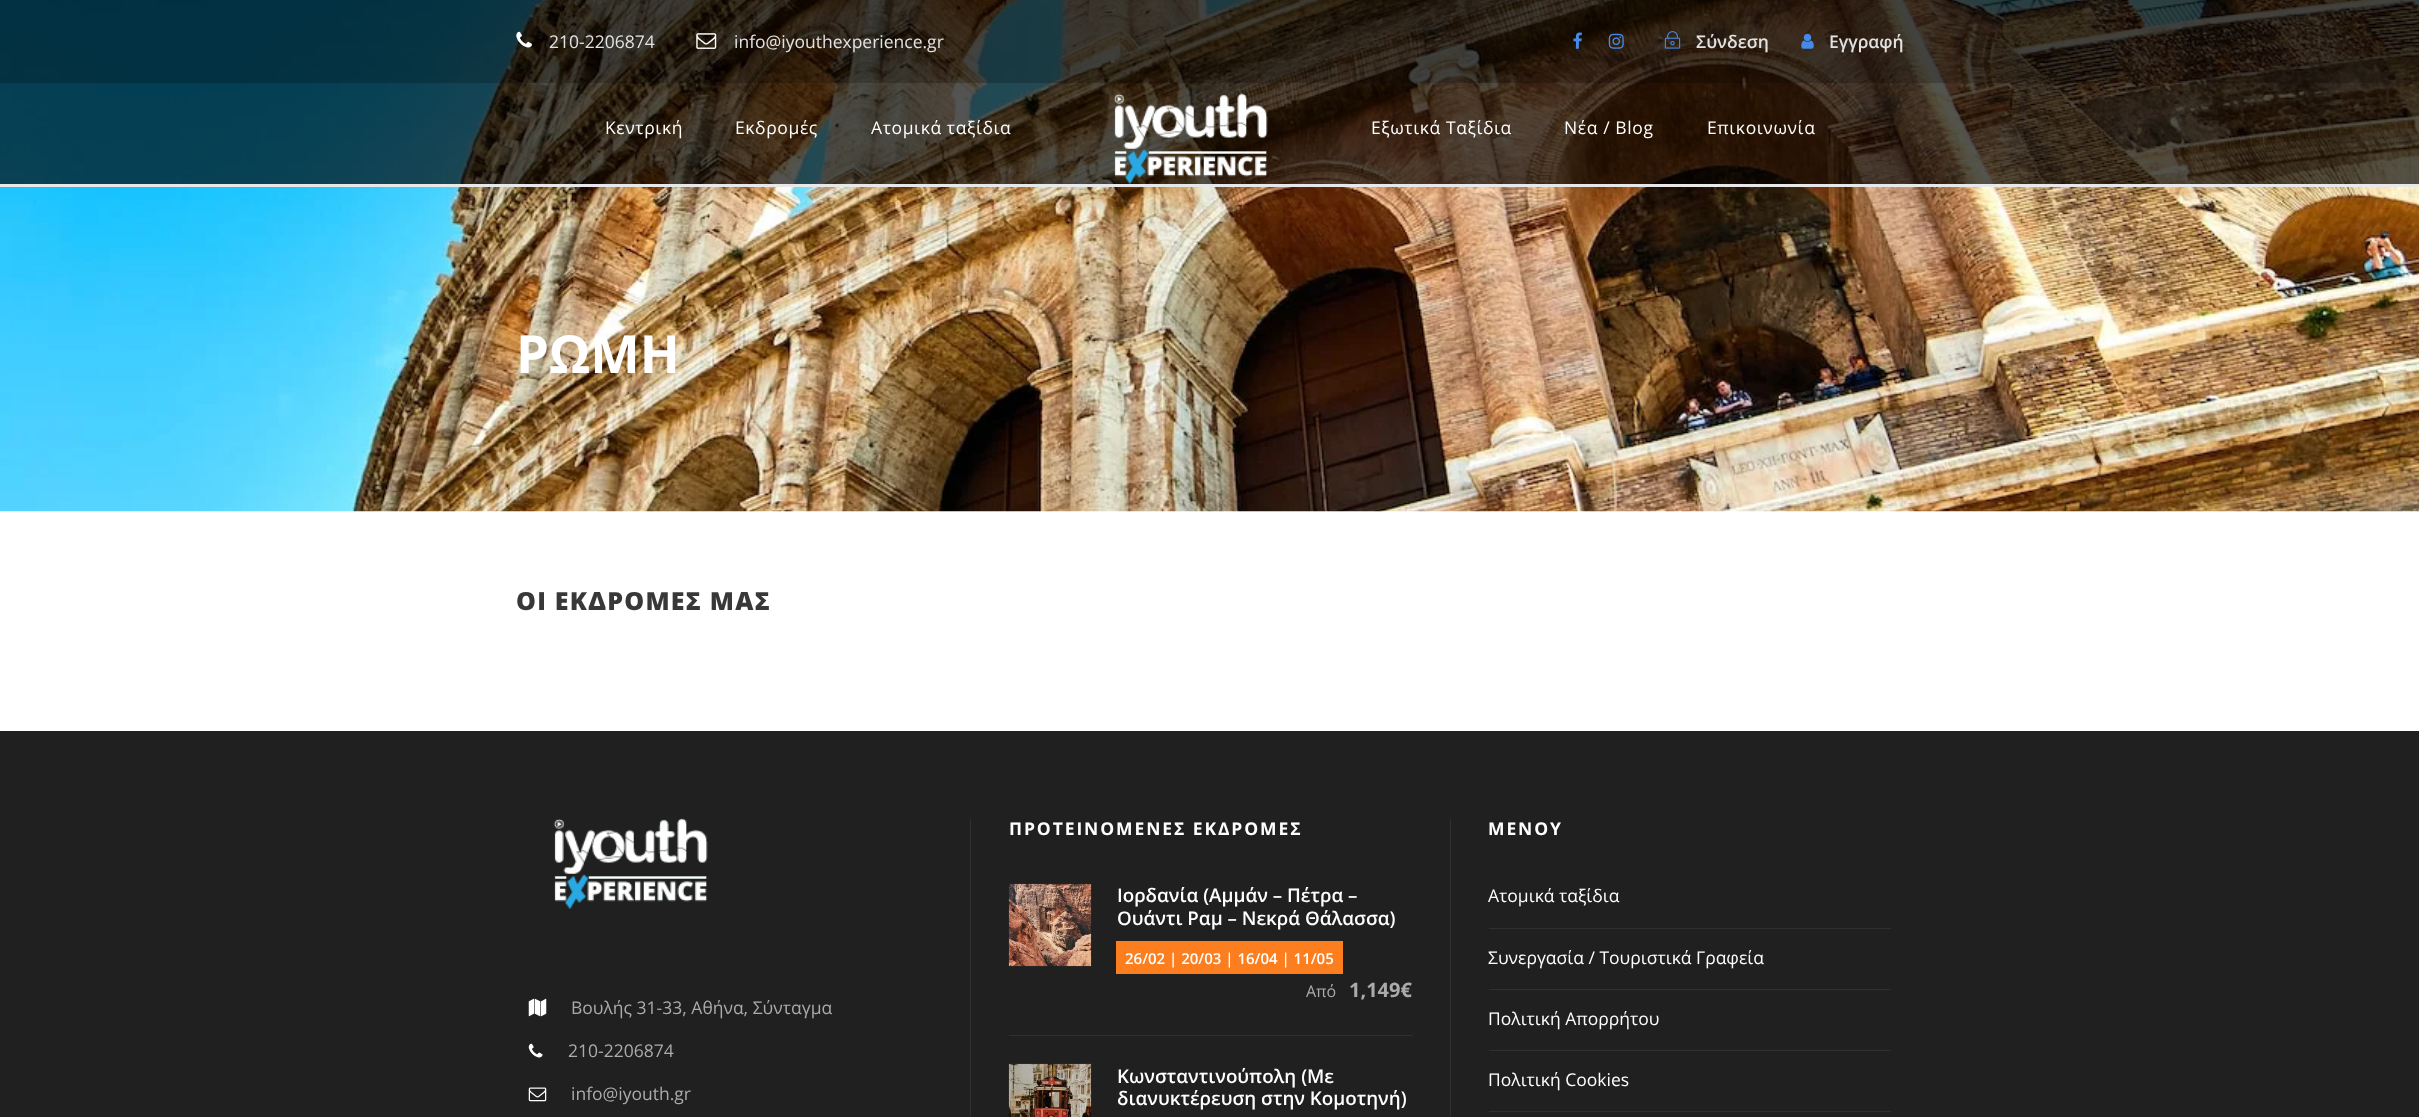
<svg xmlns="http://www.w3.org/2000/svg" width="2419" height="1117">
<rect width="100%" height="100%" fill="#fff"/>
<image x="0" y="0" width="2419" height="512" href="media/8.png"/>
<rect width="2419" height="83" fill="#000000bd"/>
<image x="516" y="31" width="16" height="17" href="media/1.png"/>
<text x="549" y="48" style="font-family:Open Sans;font-size:17.5px;fill:#e2e2e2">210-2206874</text>
<image x="696" y="33" width="21" height="16" href="media/2.png"/>
<text x="734" y="48" style="font-family:Open Sans;font-size:17.5px;fill:#e2e2e2">info@iyouthexperience.gr</text>
<image x="1573" y="32" width="9" height="17" href="media/3.png"/>
<image x="1608" y="33" width="16" height="16" href="media/4.png"/>
<image x="1664" y="31" width="17" height="18" href="media/5.png"/>
<text x="1696" y="48" style="font-family:Open Sans;font-size:17.5px;font-weight:600;fill:#e2e2e2">Σύνδεση</text>
<image x="1801" y="33" width="13" height="16" href="media/6.png"/>
<text x="1829" y="48" style="font-family:Open Sans;font-size:17.5px;font-weight:600;fill:#e2e2e2">Εγγραφή</text>
<rect y="184" width="2419" height="3" fill="#e8e8e8"/>
<rect y="83" width="2419" height="101" fill="#000000ab"/>
<text x="605" y="134" style="font-family:Open Sans;font-size:17.5px;letter-spacing:0.6px;fill:#fff">Κεντρική</text>
<text x="735" y="134" style="font-family:Open Sans;font-size:17.5px;letter-spacing:0.6px;fill:#fff">Εκδρομές</text>
<text x="871" y="134" style="font-family:Open Sans;font-size:17.5px;letter-spacing:0.6px;fill:#fff">Ατομικά ταξίδια</text>
<image x="1113" y="93" width="155" height="91" href="media/7.png"/>
<text x="1371" y="134" style="font-family:Open Sans;font-size:17.5px;letter-spacing:0.6px;fill:#fff">Εξωτικά Ταξίδια</text>
<text x="1564" y="134" style="font-family:Open Sans;font-size:17.5px;letter-spacing:0.6px;fill:#fff">Νέα / Blog</text>
<text x="1707" y="134" style="font-family:Open Sans;font-size:17.5px;letter-spacing:0.6px;fill:#fff">Επικοινωνία</text>
<text x="516" y="373" style="font-family:Open Sans;font-size:52.5px;font-weight:bold;fill:#fff">ΡΩΜΗ</text>
<text x="516" y="610" style="font-family:Open Sans;font-size:25px;font-weight:800;letter-spacing:1.25px;fill:#383838">ΟΙ ΕΚΔΡΟΜΕΣ ΜΑΣ</text>
<rect y="731" width="2419" height="386" fill="#202020"/>
<image x="553" y="818" width="155" height="91" href="media/9.png"/>
<image x="528" y="998" width="19" height="19" href="media/10.png"/>
<text x="571" y="1014" style="font-family:Open Sans;font-size:17.5px;fill:#ababab">Βουλής 31-33, Αθήνα, Σύνταγμα</text>
<image x="528" y="1043" width="15" height="15" href="media/11.png"/>
<text x="568" y="1057" style="font-family:Open Sans;font-size:17.5px;fill:#ababab">210-2206874</text>
<image x="528" y="1087" width="19" height="15" href="media/12.png"/>
<text x="571" y="1100" style="font-family:Open Sans;font-size:17.5px;fill:#ababab">info@iyouth.gr</text>
<rect x="970" y="819" width="1" height="298" fill="#303030"/>
<text x="1009" y="835" style="font-family:Open Sans;font-size:17.5px;font-weight:bold;letter-spacing:1.9px;fill:#fff">ΠΡΟΤΕΙΝΟΜΕΝΕΣ ΕΚΔΡΟΜΕΣ</text>
<image x="1008" y="883" width="84" height="84" href="media/13.png"/>
<text x="1117" y="902" style="font-family:Open Sans;font-size:18.75px;font-weight:600;fill:#fff">Ιορδανία (Αμμάν – Πέτρα –</text>
<text x="1117" y="925" style="font-family:Open Sans;font-size:18.75px;font-weight:600;fill:#fff">Ουάντι Ραμ – Νεκρά Θάλασσα)</text>
<rect x="1116" y="941" width="227" height="33" fill="#fc7e1e"/>
<text x="1125" y="964" style="font-family:Open Sans;font-size:15px;font-weight:600;fill:#fff">26/02 | 20/03 | 16/04 | 11/05</text>
<text x="1306" y="997" style="font-family:Open Sans;font-size:16px;fill:#ababab">Από</text>
<text x="1349" y="997" style="font-family:Open Sans;font-size:20px;font-weight:bold;fill:#ababab">1,149€</text>
<rect x="1009" y="1035" width="404" height="1" fill="#303030"/>
<image x="1008" y="1063" width="84" height="54" href="media/14.png"/>
<text x="1117" y="1083" style="font-family:Open Sans;font-size:18.75px;font-weight:600;fill:#fff">Κωνσταντινούπολη (Με</text>
<text x="1117" y="1105" style="font-family:Open Sans;font-size:18.75px;font-weight:600;fill:#fff">διανυκτέρευση στην Κομοτηνή)</text>
<rect x="1450" y="819" width="1" height="298" fill="#303030"/>
<text x="1488" y="835" style="font-family:Open Sans;font-size:17.5px;font-weight:bold;letter-spacing:1.9px;fill:#fff">ΜΕΝΟΥ</text>
<rect x="1489" y="928" width="402" height="1" fill="#303030"/>
<text x="1488" y="902" style="font-family:Open Sans;font-size:17.5px;fill:#fff">Ατομικά ταξίδια</text>
<rect x="1489" y="989" width="402" height="1" fill="#303030"/>
<text x="1488" y="964" style="font-family:Open Sans;font-size:17.5px;fill:#fff">Συνεργασία / Τουριστικά Γραφεία</text>
<rect x="1489" y="1050" width="402" height="1" fill="#303030"/>
<text x="1488" y="1025" style="font-family:Open Sans;font-size:17.5px;fill:#fff">Πολιτική Απορρήτου</text>
<rect x="1489" y="1111" width="402" height="1" fill="#303030"/>
<text x="1488" y="1086" style="font-family:Open Sans;font-size:17.5px;fill:#fff">Πολιτική Cookies</text>
</svg>
